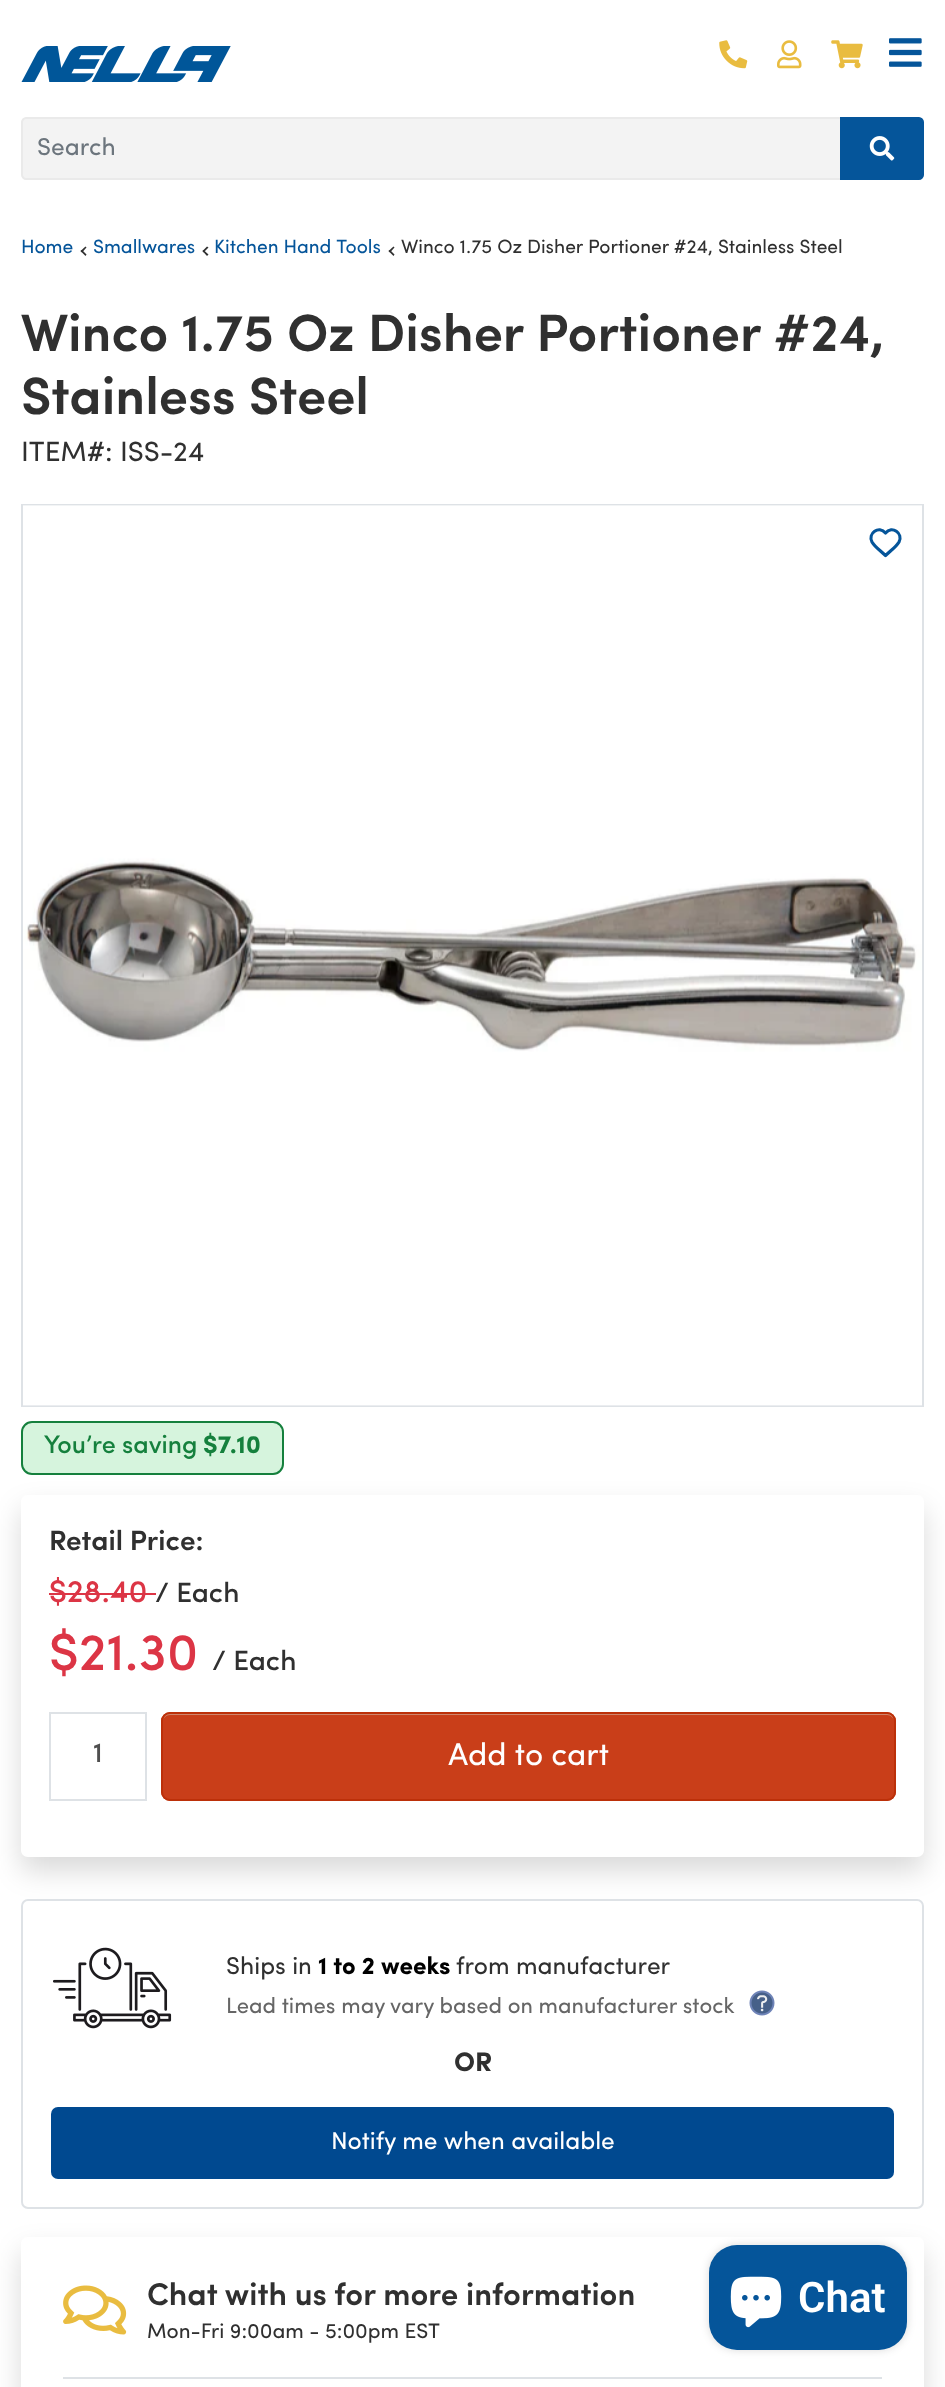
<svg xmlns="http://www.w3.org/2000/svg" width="945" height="2387">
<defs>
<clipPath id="clip1"><path d="M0 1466h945v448h-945zm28 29h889c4 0 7 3 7 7v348c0 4-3 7-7 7h-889c-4 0-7-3-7-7v-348c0-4 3-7 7-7z" clip-rule="evenodd"/></clipPath>
<clipPath id="clip2"><path d="M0 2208h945v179h-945zm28 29h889c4 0 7 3 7 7v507c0 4-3 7-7 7h-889c-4 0-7-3-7-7v-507c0-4 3-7 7-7z" clip-rule="evenodd"/></clipPath>
</defs>
<rect width="100%" height="100%" fill="#fff"/>
<image x="21" y="46" width="210" height="36" href="media/1.png"/>
<image x="719" y="40" width="29" height="29" href="media/2.png"/>
<image x="777" y="40" width="25" height="29" href="media/3.png"/>
<image x="831" y="40" width="32" height="29" href="media/4.png"/>
<image x="889" y="38" width="33" height="29" href="media/5.png"/>
<path d="M26 118h815v61h-815c-2 0-4-2-4-4v-53c0-2 2-4 4-4z" fill="#f3f3f3" stroke="#eaeaea" stroke-width="2"/>
<text x="37" y="155" style="font-family:Sofia;font-size:24.5px;fill:#6c757d">Search</text>
<path d="M841 118h78c2 0 4 2 4 4v53c0 2-2 4-4 4h-78z" fill="#05559a" stroke="#05559a" stroke-width="2"/>
<image x="869" y="136" width="26" height="25" href="media/6.png"/>
<text x="21" y="253" style="font-family:Sofia;font-size:19.25px;fill:#05559a">Home</text>
<path d="M85.5 256l-5-5l1.5-1l4.5 4.5z" fill="#303030"/>
<path d="M82 252.5l-1.5-1.5l5-4.5l1 1z" fill="#303030"/>
<text x="93" y="253" style="font-family:Sofia;font-size:19.25px;fill:#05559a">Smallwares</text>
<path d="M207 256l-4.5-5l1-1l5 4.5z" fill="#303030"/>
<path d="M203.5 252.5l-1-1.5l4.5-4.5l1.5 1z" fill="#303030"/>
<text x="214" y="253" style="font-family:Sofia;font-size:19.25px;fill:#05559a">Kitchen Hand Tools</text>
<path d="M393.5 256l-5-5l1.5-1l4.5 4.5z" fill="#303030"/>
<path d="M390 252.5l-1.5-1.5l5-4.5l1 1z" fill="#303030"/>
<text x="401" y="253" style="font-family:Sofia;font-size:19.25px;fill:#303030">Winco 1.75 Oz Disher Portioner #24, Stainless Steel</text>
<text x="21" y="351" style="font-family:Sofia;font-size:52.7px;font-weight:600;fill:#303030">Winco 1.75 Oz Disher Portioner #24,</text>
<text x="21" y="414" style="font-family:Sofia;font-size:52.7px;font-weight:600;fill:#303030">Stainless Steel</text>
<text x="21" y="461" style="font-family:Sofia;font-size:28px;fill:#303030">ITEM#: ISS-24</text>
<rect x="22" y="505" width="901" height="901" fill="none" stroke="#dee2e6" stroke-width="2"/>
<image x="23" y="505" width="899" height="901" href="media/7.png"/>
<path d="M885.5 533c-6.5-8-18 .5-13.5 9c2 3.5 5.5 6.5 8.5 9l5 4.5l5-4.5c3-2.5 6.5-5.5 8.5-9c4.5-8.5-7-17-13.5-9z" fill="none" stroke="#05559a" stroke-width="3.2" stroke-linecap="round" stroke-linejoin="round"/>
<rect x="22" y="1422" width="261" height="52" rx="10" fill="#d6f4dd" stroke="#15803d" stroke-width="2"/>
<text x="44" y="1453" style="font-family:Sofia;font-size:25.25px;font-weight:500;fill:#15803d">You’re saving</text>
<text x="203" y="1453" style="font-family:Sofia;font-size:25.25px;font-weight:bold;fill:#15803d">$7.10</text>
<rect x="22" y="1900" width="901" height="308" rx="6" fill="none" stroke="#dee2e6" stroke-width="2"/>
<g clip-path="url(#clip1)">
<rect x="21" y="1509" width="903" height="362" rx="7" fill="#00000026" filter="blur(14px)"/>
</g>
<text x="49" y="1550" style="font-family:Sofia;font-size:28px;font-weight:600;fill:#303030">Retail Price:</text>
<text x="49" y="1602" style="font-family:Sofia;font-size:31.5px;font-weight:500;fill:#dc3545">$28.40</text>
<text x="155" y="1602" style="font-family:Sofia;font-size:28px;font-weight:500;fill:#303030">/ Each</text>
<rect x="49" y="1593" width="107" height="2" fill="#dc3545"/>
<text x="49" y="1670" style="font-family:Sofia;font-size:52.5px;font-weight:500;fill:#dc3545">$21.30</text>
<text x="212" y="1670" style="font-family:Sofia;font-size:28px;font-weight:500;fill:#303030">/ Each</text>
<rect x="50" y="1713" width="96" height="87" fill="none" stroke="#dee2e6" stroke-width="2"/>
<text x="93" y="1762" style="font-family:Sofia;font-size:28px;font-weight:500;fill:#4f4f4f">1</text>
<rect x="161" y="1712" width="735" height="89" rx="9" fill="#c93e19"/>
<path d="M170 1715h717c4 0 7 3 7 7c0-4-2-9-7-9h-717c-5 0-7 5-7 9c0-4 3-7 7-7z" fill="#cf866c"/>
<rect x="162" y="1713" width="733" height="87" rx="8" fill="none" stroke="#bc3009" stroke-width="2"/>
<text x="448" y="1765" style="font-family:Sofia;font-size:31.5px;fill:#fff">Add to cart</text>
<image x="53" y="1947" width="119" height="82" href="media/8.png"/>
<text x="226" y="1974" style="font-family:Sofia;font-size:24.5px;fill:#303030">Ships in</text>
<text x="318" y="1974" style="font-family:Sofia;font-size:24.5px;font-weight:bold;fill:#000">1 to 2 weeks</text>
<text x="456" y="1974" style="font-family:Sofia;font-size:24.5px;fill:#303030">from manufacturer</text>
<text x="226" y="2013" style="font-family:Sofia;font-size:22.05px;fill:#666">Lead times may vary based on manufacturer stock</text>
<image x="749" y="1990" width="26" height="26" href="media/9.png"/>
<text x="454" y="2071" style="font-family:Sofia;font-size:27px;font-weight:bold;fill:#303030">OR</text>
<rect x="51" y="2107" width="843" height="72" rx="7" fill="#004990"/>
<text x="331" y="2149" style="font-family:Sofia;font-size:24.5px;fill:#fff">Notify me when available</text>
<g clip-path="url(#clip2)">
<rect x="21" y="2251" width="903" height="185" rx="7" fill="#00000026" filter="blur(14px)"/>
</g>
<rect x="63" y="2377" width="819" height="2" fill="#dee2e6"/>
<image x="63" y="2285" width="64" height="50" href="media/10.png"/>
<text x="147" y="2305" style="font-family:Sofia;font-size:31.5px;font-weight:600;fill:#303030">Chat with us for more information</text>
<text x="147" y="2338" style="font-family:Sofia;font-size:21px;fill:#303030">Mon-Fri 9:00am - 5:00pm EST</text>
<rect x="709" y="2245" width="198" height="105" rx="28" fill="#00000026" filter="blur(4.5px)"/>
<rect x="709" y="2245" width="198" height="105" rx="28" fill="#05559a"/>
<image x="730" y="2276" width="52" height="52" href="media/11.png"/>
<text x="798" y="2312" style="font-family:Roboto;font-size:42px;font-weight:600;fill:#fff">Chat</text>
</svg>
